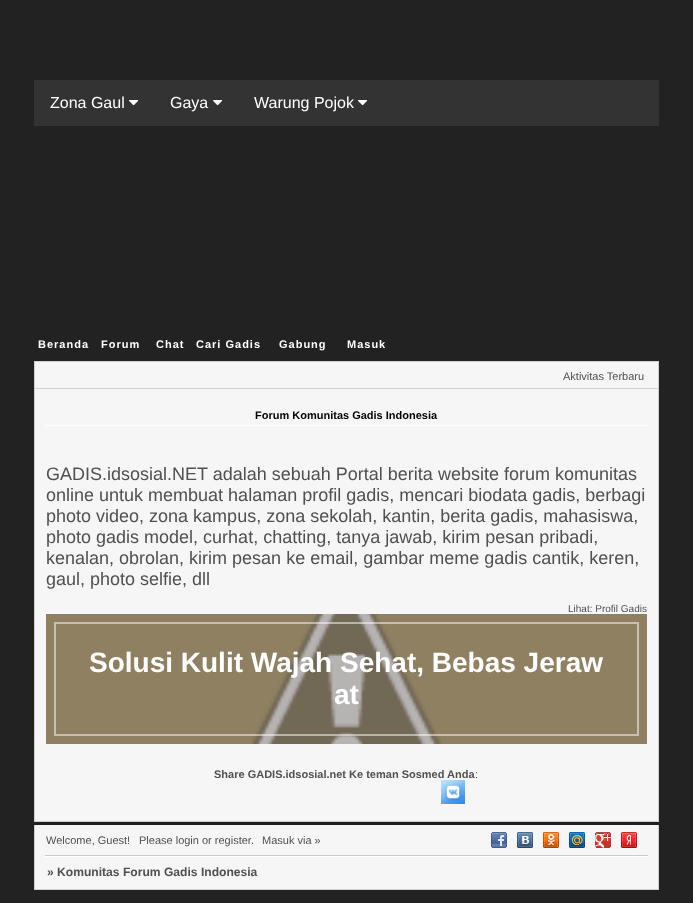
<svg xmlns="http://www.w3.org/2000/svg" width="693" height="903">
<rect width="100%" height="100%" fill="#222"/>
<rect x="34" y="80" width="625" height="46" fill="#333"/>
<text x="50" y="108" style="font-family:Liberation Sans;font-size:16px;fill:#fff">Zona Gaul</text>
<image x="129" y="100" width="10" height="6" href="media/1.png"/>
<text x="170" y="108" style="font-family:Liberation Sans;font-size:16px;fill:#fff">Gaya</text>
<image x="213" y="100" width="10" height="6" href="media/1.png"/>
<text x="254" y="108" style="font-family:Liberation Sans;font-size:16px;fill:#fff">Warung Pojok</text>
<image x="358" y="100" width="10" height="6" href="media/1.png"/>
<text x="38" y="348" style="font-family:Liberation Sans;font-size:11px;font-weight:bold;letter-spacing:1px;fill:#fff">Beranda</text>
<text x="101" y="348" style="font-family:Liberation Sans;font-size:11px;font-weight:bold;letter-spacing:1px;fill:#fff">Forum</text>
<text x="156" y="348" style="font-family:Liberation Sans;font-size:11px;font-weight:bold;letter-spacing:1px;fill:#fff">Chat</text>
<text x="196" y="348" style="font-family:Liberation Sans;font-size:11px;font-weight:bold;letter-spacing:1px;fill:#fff">Cari Gadis</text>
<text x="279" y="348" style="font-family:Liberation Sans;font-size:11px;font-weight:bold;letter-spacing:1px;fill:#fff">Gabung</text>
<text x="347" y="348" style="font-family:Liberation Sans;font-size:11px;font-weight:bold;letter-spacing:1px;fill:#fff">Masuk</text>
<rect x="35" y="362" width="623" height="26" fill="#f6f6f6"/>
<rect x="34.5" y="361.5" width="624" height="29" fill="none" stroke="#d0d0d0"/>
<text x="563" y="380" style="font-family:Liberation Sans;font-size:11px;fill:#515050">Aktivitas Terbaru</text>
<rect x="34.5" y="388.5" width="624" height="433" fill="#f6f6f6" stroke="#d0d0d0"/>
<rect x="45" y="425" width="603" height="1" fill="#fff"/>
<text x="255" y="419" style="font-family:Liberation Sans;font-size:11px;font-weight:bold;fill:#000">Forum Komunitas Gadis Indonesia</text>
<text x="46" y="480" style="font-family:Liberation Sans;font-size:18px;fill:#515050">GADIS.idsosial.NET adalah sebuah Portal berita website forum komunitas</text>
<text x="46" y="501" style="font-family:Liberation Sans;font-size:18px;fill:#515050">online untuk membuat halaman profil gadis, mencari biodata gadis, berbagi</text>
<text x="46" y="522" style="font-family:Liberation Sans;font-size:18px;fill:#515050">photo video, zona kampus, zona sekolah, kantin, berita gadis, mahasiswa,</text>
<text x="46" y="543" style="font-family:Liberation Sans;font-size:18px;fill:#515050">photo gadis model, curhat, chatting, tanya jawab, kirim pesan pribadi,</text>
<text x="46" y="564" style="font-family:Liberation Sans;font-size:18px;fill:#515050">kenalan, obrolan, kirim pesan ke email, gambar meme gadis cantik, keren,</text>
<text x="46" y="585" style="font-family:Liberation Sans;font-size:18px;fill:#515050">gaul, photo selfie, dll</text>
<text x="568" y="612" style="font-family:Liberation Sans;font-size:10px;fill:#515050">Lihat: Profil Gadis</text>
<rect x="46" y="614" width="601" height="130" fill="#8e8061"/>
<image x="251" y="614" width="192" height="130" href="media/2.png"/>
<rect x="55" y="623" width="583" height="112" fill="none" stroke="#ffffff80" stroke-width="2"/>
<text x="89" y="672" style="font-family:Liberation Sans;font-size:28px;font-weight:bold;fill:#fff">Solusi Kulit Wajah Sehat, Bebas Jeraw</text>
<text x="334" y="704" style="font-family:Liberation Sans;font-size:28px;font-weight:bold;fill:#fff">at</text>
<text x="214" y="778" style="font-family:Liberation Sans;font-size:11px;font-weight:bold;fill:#515050">Share GADIS.idsosial.net Ke teman Sosmed Anda</text>
<text x="475" y="778" style="font-family:Liberation Sans;font-size:11px;fill:#515050">:</text>
<image x="441" y="780" width="24" height="24" href="media/3.png"/>
<rect x="35" y="825" width="623" height="64" fill="#f6f6f6"/>
<rect x="658" y="825" width="1" height="65" fill="#d0d0d0"/>
<rect x="34" y="825" width="1" height="32" fill="#d0d0d0"/>
<text x="46" y="844" style="font-family:Liberation Sans;font-size:11px;fill:#515050">Welcome, Guest!</text>
<text x="139" y="844" style="font-family:Liberation Sans;font-size:11px;fill:#515050">Please login or register</text>
<text x="262" y="844" style="font-family:Liberation Sans;font-size:11px;fill:#515050">Masuk via »</text>
<image x="491" y="832" width="16" height="16" href="media/4.png"/>
<image x="517" y="832" width="16" height="16" href="media/5.png"/>
<image x="543" y="832" width="16" height="16" href="media/6.png"/>
<image x="569" y="832" width="16" height="16" href="media/7.png"/>
<image x="595" y="832" width="16" height="16" href="media/8.png"/>
<image x="621" y="832" width="16" height="16" href="media/9.png"/>
<text x="251" y="844" style="font-family:Liberation Sans;font-size:11px;fill:#515050">.</text>
<rect x="45" y="855" width="603" height="1" fill="#ccc"/>
<rect x="45" y="856" width="603" height="1" fill="#fff"/>
<rect x="34" y="889" width="625" height="1" fill="#d0d0d0"/>
<rect x="34" y="853" width="1" height="37" fill="#d0d0d0"/>
<text x="47" y="876" style="font-family:Liberation Sans;font-size:12.1px;font-weight:bold;fill:#515050">» Komunitas Forum Gadis Indonesia</text>
</svg>
